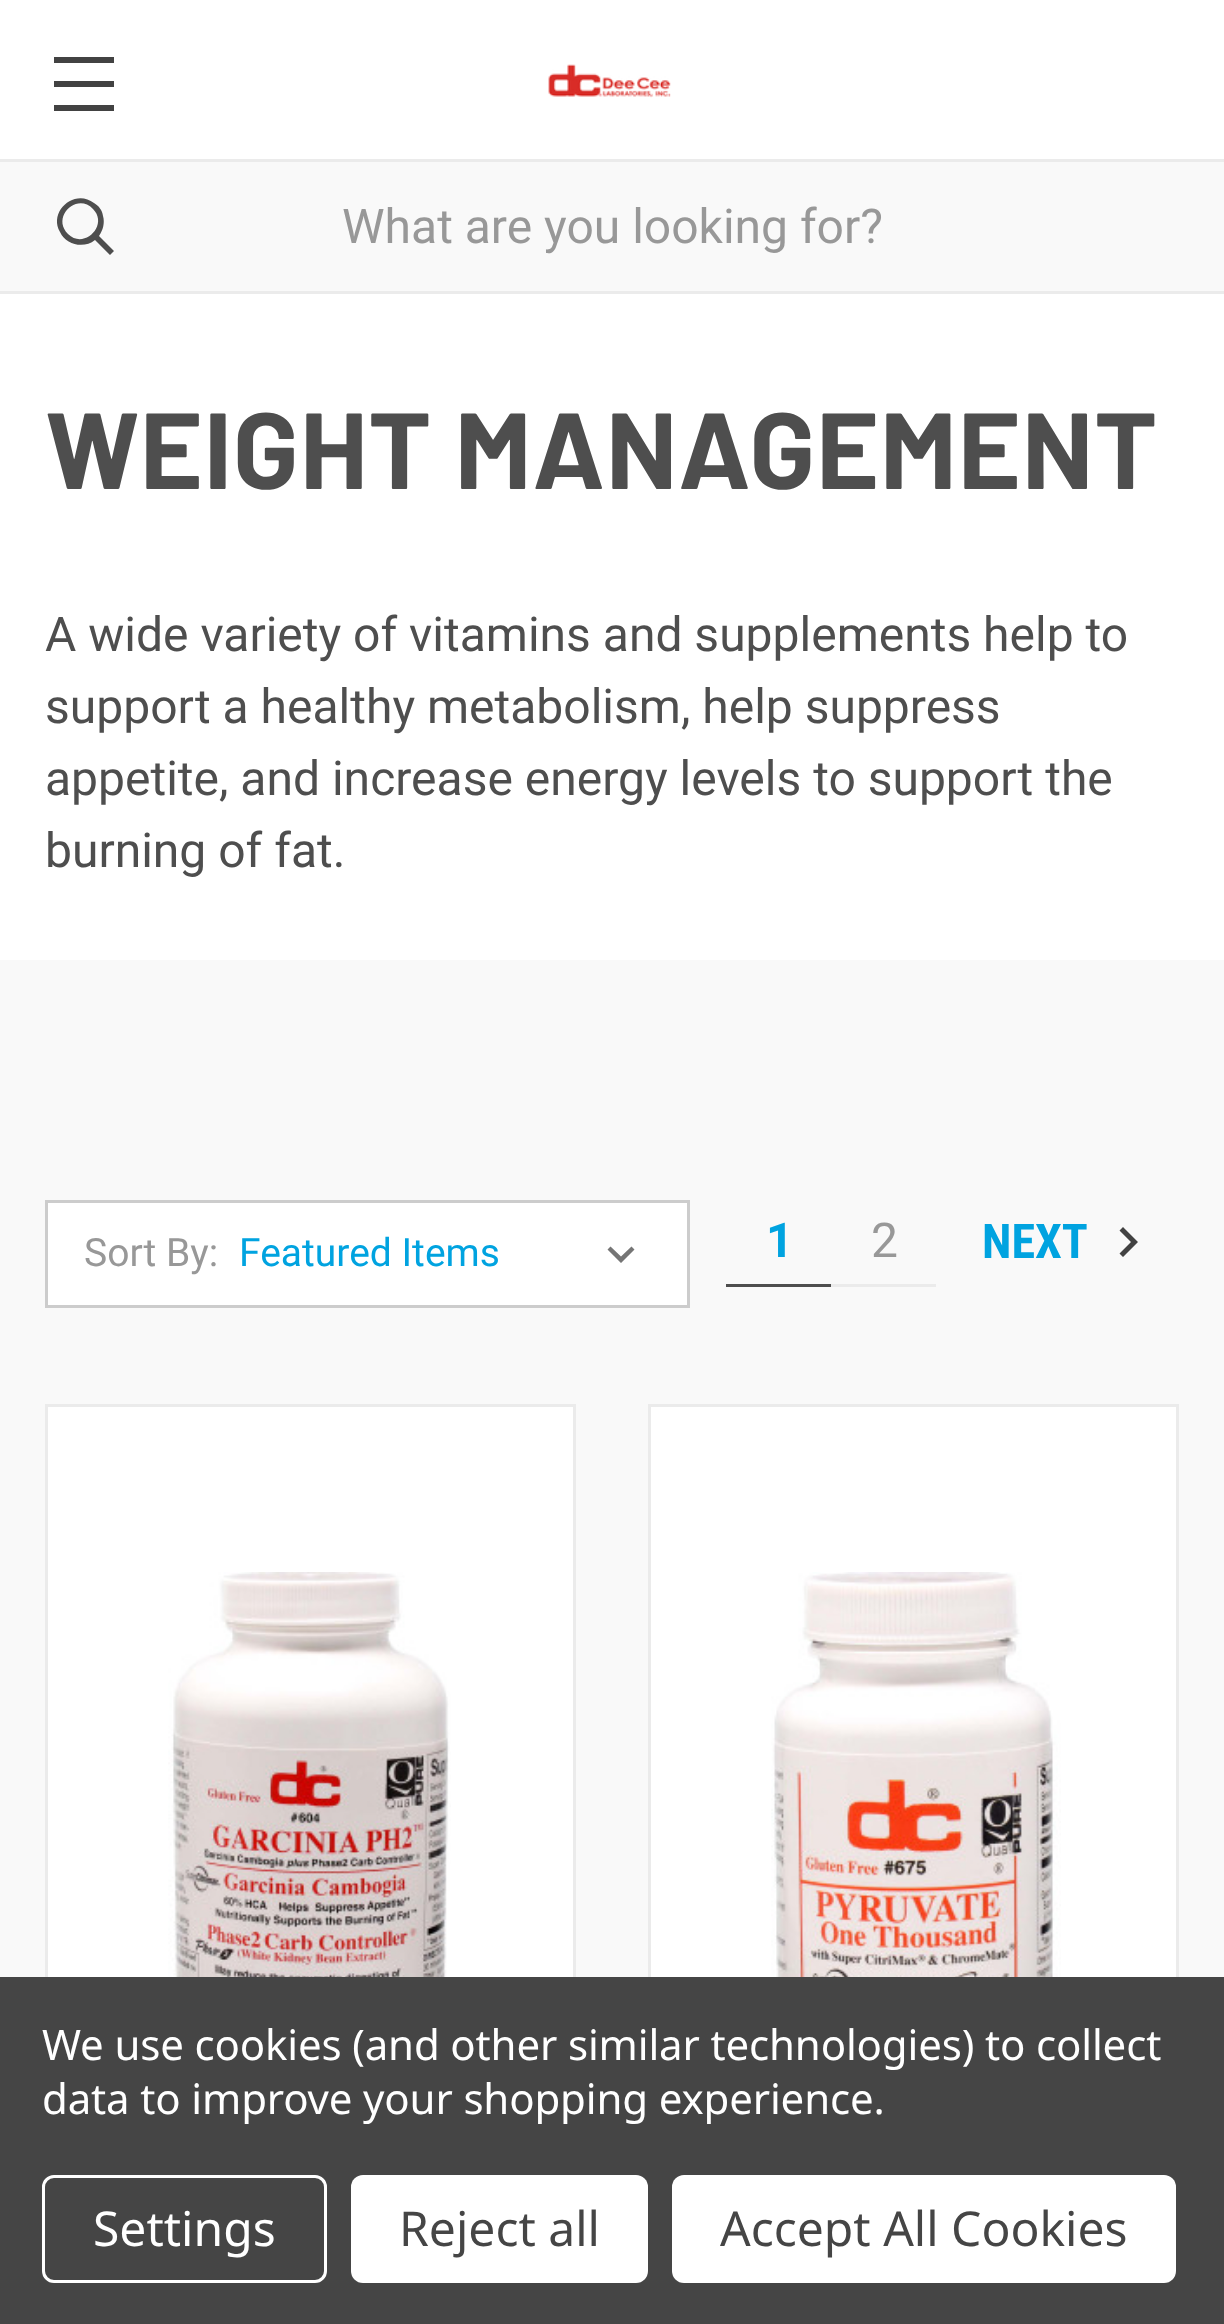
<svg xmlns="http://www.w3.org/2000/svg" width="1224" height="2324">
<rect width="100%" height="100%" fill="#fff"/>
<rect y="291" width="1224" height="3" fill="#ebebeb"/>
<rect x="54" y="81" width="60" height="6" fill="#424242"/>
<rect x="54" y="57" width="60" height="6" fill="#424242"/>
<rect x="54" y="105" width="60" height="6" fill="#424242"/>
<image x="548" y="64" width="123" height="34" href="media/1.png"/>
<rect y="162" width="1224" height="129" fill="#f9f9f9"/>
<path d="M114 251l-4 4l-15-15c-11 9-29 5-35-8c-12-21 15-44 34-29c5 3 8 7 9 13c2 7 0 14-4 20zm-46-17c16 16 41-9 25-25c-16-17-42 8-25 25z" fill="#4e4e4e" fill-rule="evenodd"/>
<rect y="159" width="1224" height="3" fill="#ebebeb"/>
<text x="342" y="243" style="font-family:Roboto;font-size:48px;fill:#989898">What are you looking for?</text>
<text x="45" y="489" style="font-family:Barlow;font-size:108px;font-weight:bold;letter-spacing:0.75px;fill:#4e4e4e">WEIGHT MANAGEMENT</text>
<text x="45" y="651" style="font-family:Roboto;font-size:48px;fill:#4e4e4e">A wide variety of vitamins and supplements help to</text>
<text x="45" y="723" style="font-family:Roboto;font-size:48px;fill:#4e4e4e">support a healthy metabolism, help suppress</text>
<text x="45" y="795" style="font-family:Roboto;font-size:48px;fill:#4e4e4e">appetite, and increase energy levels to support the</text>
<text x="45" y="867" style="font-family:Roboto;font-size:48px;fill:#4e4e4e">burning of fat.</text>
<rect y="960" width="1224" height="1017" fill="#f9f9f9"/>
<rect x="46.5" y="1201.5" width="642" height="105" fill="#fff" stroke="#ccc" stroke-width="3"/>
<text x="84" y="1266" style="font-family:Roboto;font-size:39px;fill:#989898">Sort By:</text>
<path d="M631.5 1246.5l-10.5 10l-10.5-10l-3 3l13.5 13.5l13.5-13.5z" fill="#757575"/>
<text x="239" y="1266" style="font-family:Roboto;font-size:39px;fill:#00a3e0">Featured Items</text>
<rect x="726" y="1284" width="105" height="3" fill="#4e4e4e"/>
<text x="766" y="1257" style="font-family:Roboto;font-size:48px;font-weight:bold;fill:#00a3e0">1</text>
<rect x="831" y="1284" width="105" height="3" fill="#ebebeb"/>
<text x="871" y="1257" style="font-family:Roboto;font-size:48px;fill:#989898">2</text>
<text x="982" y="1258" style="font-family:Roboto Condensed;font-size:48px;font-weight:bold;fill:#00a3e0">NEXT</text>
<path d="M1123 1227l-3.5 3.5l11.5 11.5l-11.5 11.5l3.5 3.5l15-15z" fill="#424242"/>
<rect x="48" y="1407" width="525" height="570" fill="#fff"/>
<rect x="46.5" y="1405.5" width="528" height="852" fill="none" stroke="#ebebeb" stroke-width="3"/>
<image x="168" y="1572" width="283" height="405" href="media/2.png"/>
<rect x="651" y="1407" width="525" height="570" fill="#fff"/>
<rect x="649.5" y="1405.5" width="528" height="852" fill="none" stroke="#ebebeb" stroke-width="3"/>
<image x="771" y="1572" width="290" height="405" href="media/3.png"/>
<rect y="1977" width="1224" height="347" fill="#454545"/>
<text x="42" y="2060" style="font-family:Noto Sans;font-size:42px;letter-spacing:-0.15px;fill:#fff">We use cookies (and other similar technologies) to collect</text>
<text x="42" y="2114" style="font-family:Noto Sans;font-size:42px;letter-spacing:-0.15px;fill:#fff">data to improve your shopping experience.</text>
<rect x="43.5" y="2176.5" width="282" height="105" rx="10.5" fill="none" stroke="#fff" stroke-width="3"/>
<text x="93" y="2246" style="font-family:Noto Sans;font-size:48px;fill:#fff">Settings</text>
<rect x="351" y="2175" width="297" height="108" rx="12" fill="#fff"/>
<text x="399" y="2246" style="font-family:Noto Sans;font-size:48px;fill:#454545">Reject all</text>
<rect x="672" y="2175" width="504" height="108" rx="12" fill="#fff"/>
<text x="720" y="2246" style="font-family:Noto Sans;font-size:48px;fill:#454545">Accept All Cookies</text>
</svg>
